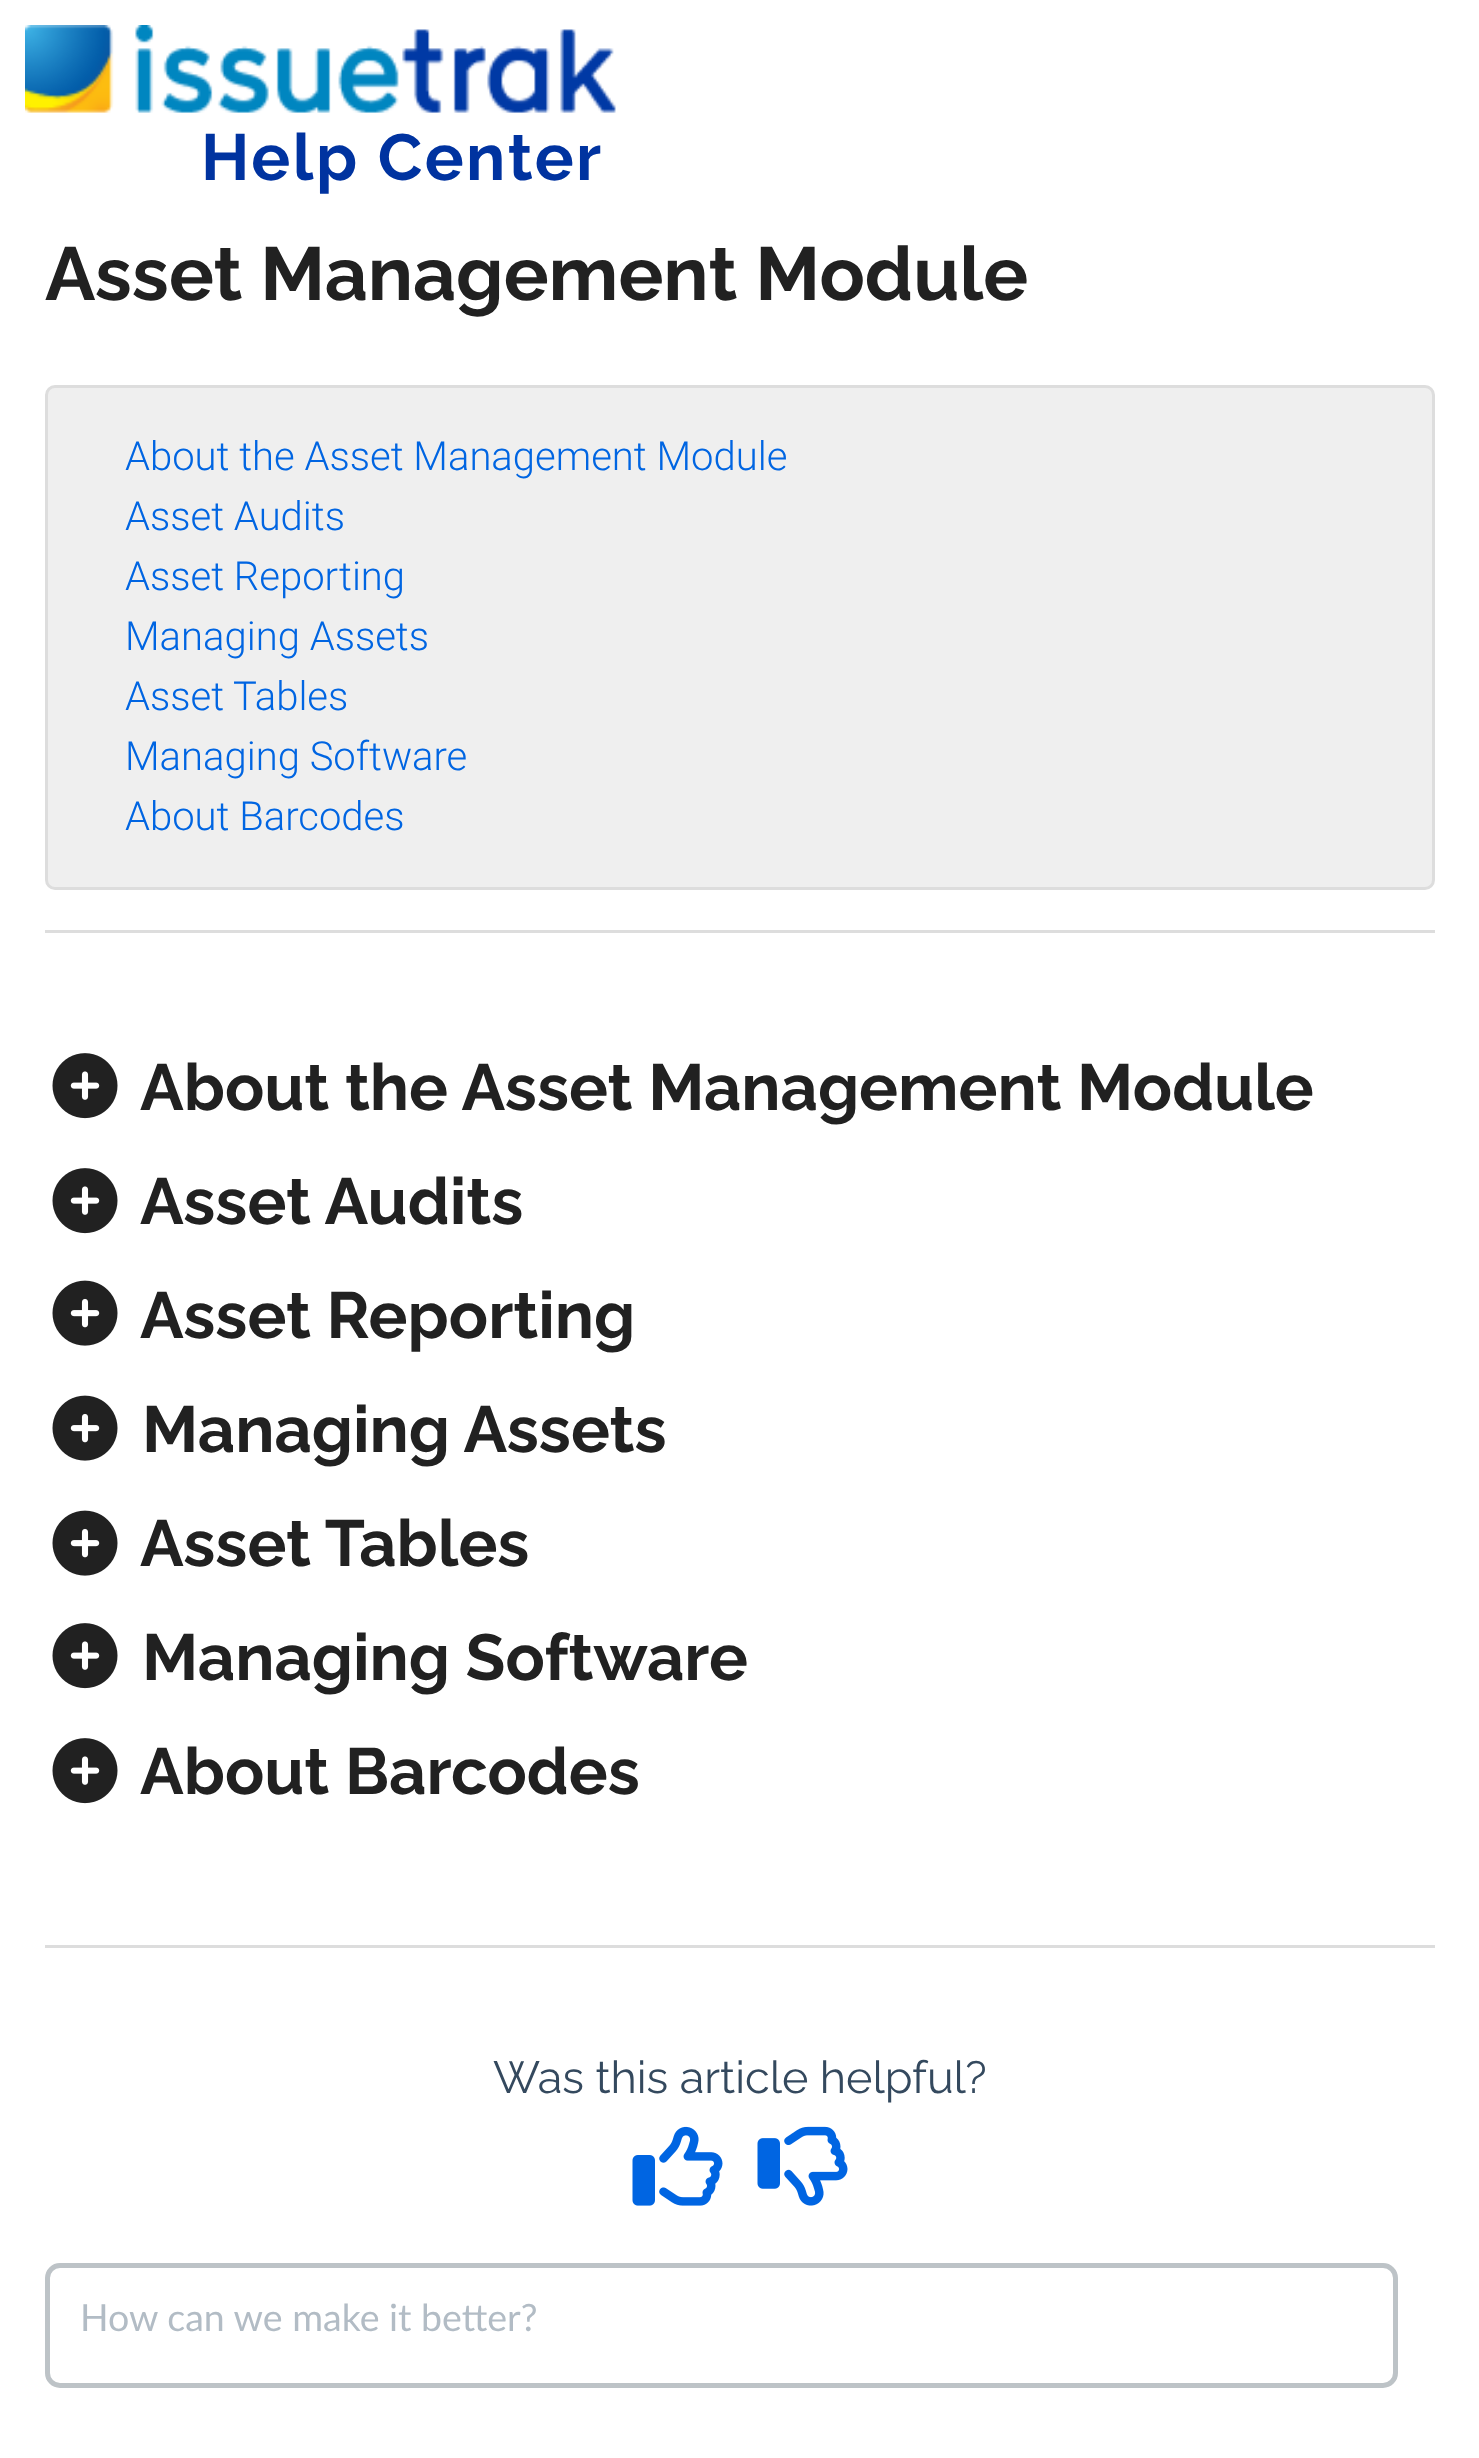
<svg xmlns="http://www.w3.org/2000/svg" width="1479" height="2458">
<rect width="100%" height="100%" fill="#fff"/>
<image x="25" y="25" width="591" height="88" href="media/1.png"/>
<text x="201" y="180" style="font-family:Raleway;font-size:65px;font-weight:100;letter-spacing:2.5px;fill:#0033a0">Help Center</text>
<text x="45" y="300" style="font-family:Raleway;font-size:75px;font-weight:100;fill:#212121">Asset Management Module</text>
<rect x="45" y="1945" width="1390" height="3" fill="#ddd"/>
<rect x="45" y="930" width="1390" height="3" fill="#ddd"/>
<rect x="46.5" y="386.5" width="1387" height="502" rx="8.5" fill="#efefef" stroke="#ddd" stroke-width="3"/>
<text x="125" y="470" style="font-family:Roboto;font-size:40px;font-weight:300;fill:#0065e2">About the Asset Management Module</text>
<text x="125" y="530" style="font-family:Roboto;font-size:40px;font-weight:300;fill:#0065e2">Asset Audits</text>
<text x="125" y="590" style="font-family:Roboto;font-size:40px;font-weight:300;fill:#0065e2">Asset Reporting</text>
<text x="125" y="650" style="font-family:Roboto;font-size:40px;font-weight:300;fill:#0065e2">Managing Assets</text>
<text x="125" y="710" style="font-family:Roboto;font-size:40px;font-weight:300;fill:#0065e2">Asset Tables</text>
<text x="125" y="770" style="font-family:Roboto;font-size:40px;font-weight:300;fill:#0065e2">Managing Software</text>
<text x="125" y="830" style="font-family:Roboto;font-size:40px;font-weight:300;fill:#0065e2">About Barcodes</text>
<image x="52" y="1053" width="66" height="66" href="media/2.png"/>
<text x="140" y="1110" style="font-family:Raleway;font-size:65px;font-weight:100;fill:#212121">About the Asset Management Module</text>
<image x="52" y="1168" width="66" height="66" href="media/2.png"/>
<text x="140" y="1224" style="font-family:Raleway;font-size:65px;font-weight:100;fill:#212121">Asset Audits</text>
<image x="52" y="1280" width="66" height="66" href="media/3.png"/>
<text x="140" y="1338" style="font-family:Raleway;font-size:65px;font-weight:100;fill:#212121">Asset Reporting</text>
<image x="52" y="1395" width="66" height="66" href="media/3.png"/>
<text x="142" y="1452" style="font-family:Raleway;font-size:65px;font-weight:100;fill:#212121">Managing Assets</text>
<image x="52" y="1510" width="66" height="66" href="media/3.png"/>
<text x="140" y="1566" style="font-family:Raleway;font-size:65px;font-weight:100;fill:#212121">Asset Tables</text>
<image x="52" y="1623" width="66" height="66" href="media/2.png"/>
<text x="142" y="1680" style="font-family:Raleway;font-size:65px;font-weight:100;fill:#212121">Managing Software</text>
<image x="52" y="1738" width="66" height="66" href="media/2.png"/>
<text x="140" y="1794" style="font-family:Raleway;font-size:65px;font-weight:100;fill:#212121">About Barcodes</text>
<text x="493" y="2093" style="font-family:'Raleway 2';font-size:45px;font-weight:100;fill:#34495e">Was this article helpful?</text>
<image x="632" y="2126" width="91" height="80" href="media/4.png"/>
<image x="757" y="2126" width="91" height="80" href="media/5.png"/>
<rect x="47.5" y="2265.5" width="1348" height="120" rx="12.5" fill="none" stroke="#bdc3c7" stroke-width="5"/>
<text x="80" y="2331" style="font-family:Lato;font-size:37.5px;fill:#b2bcc5">How can we make it better?</text>
</svg>
